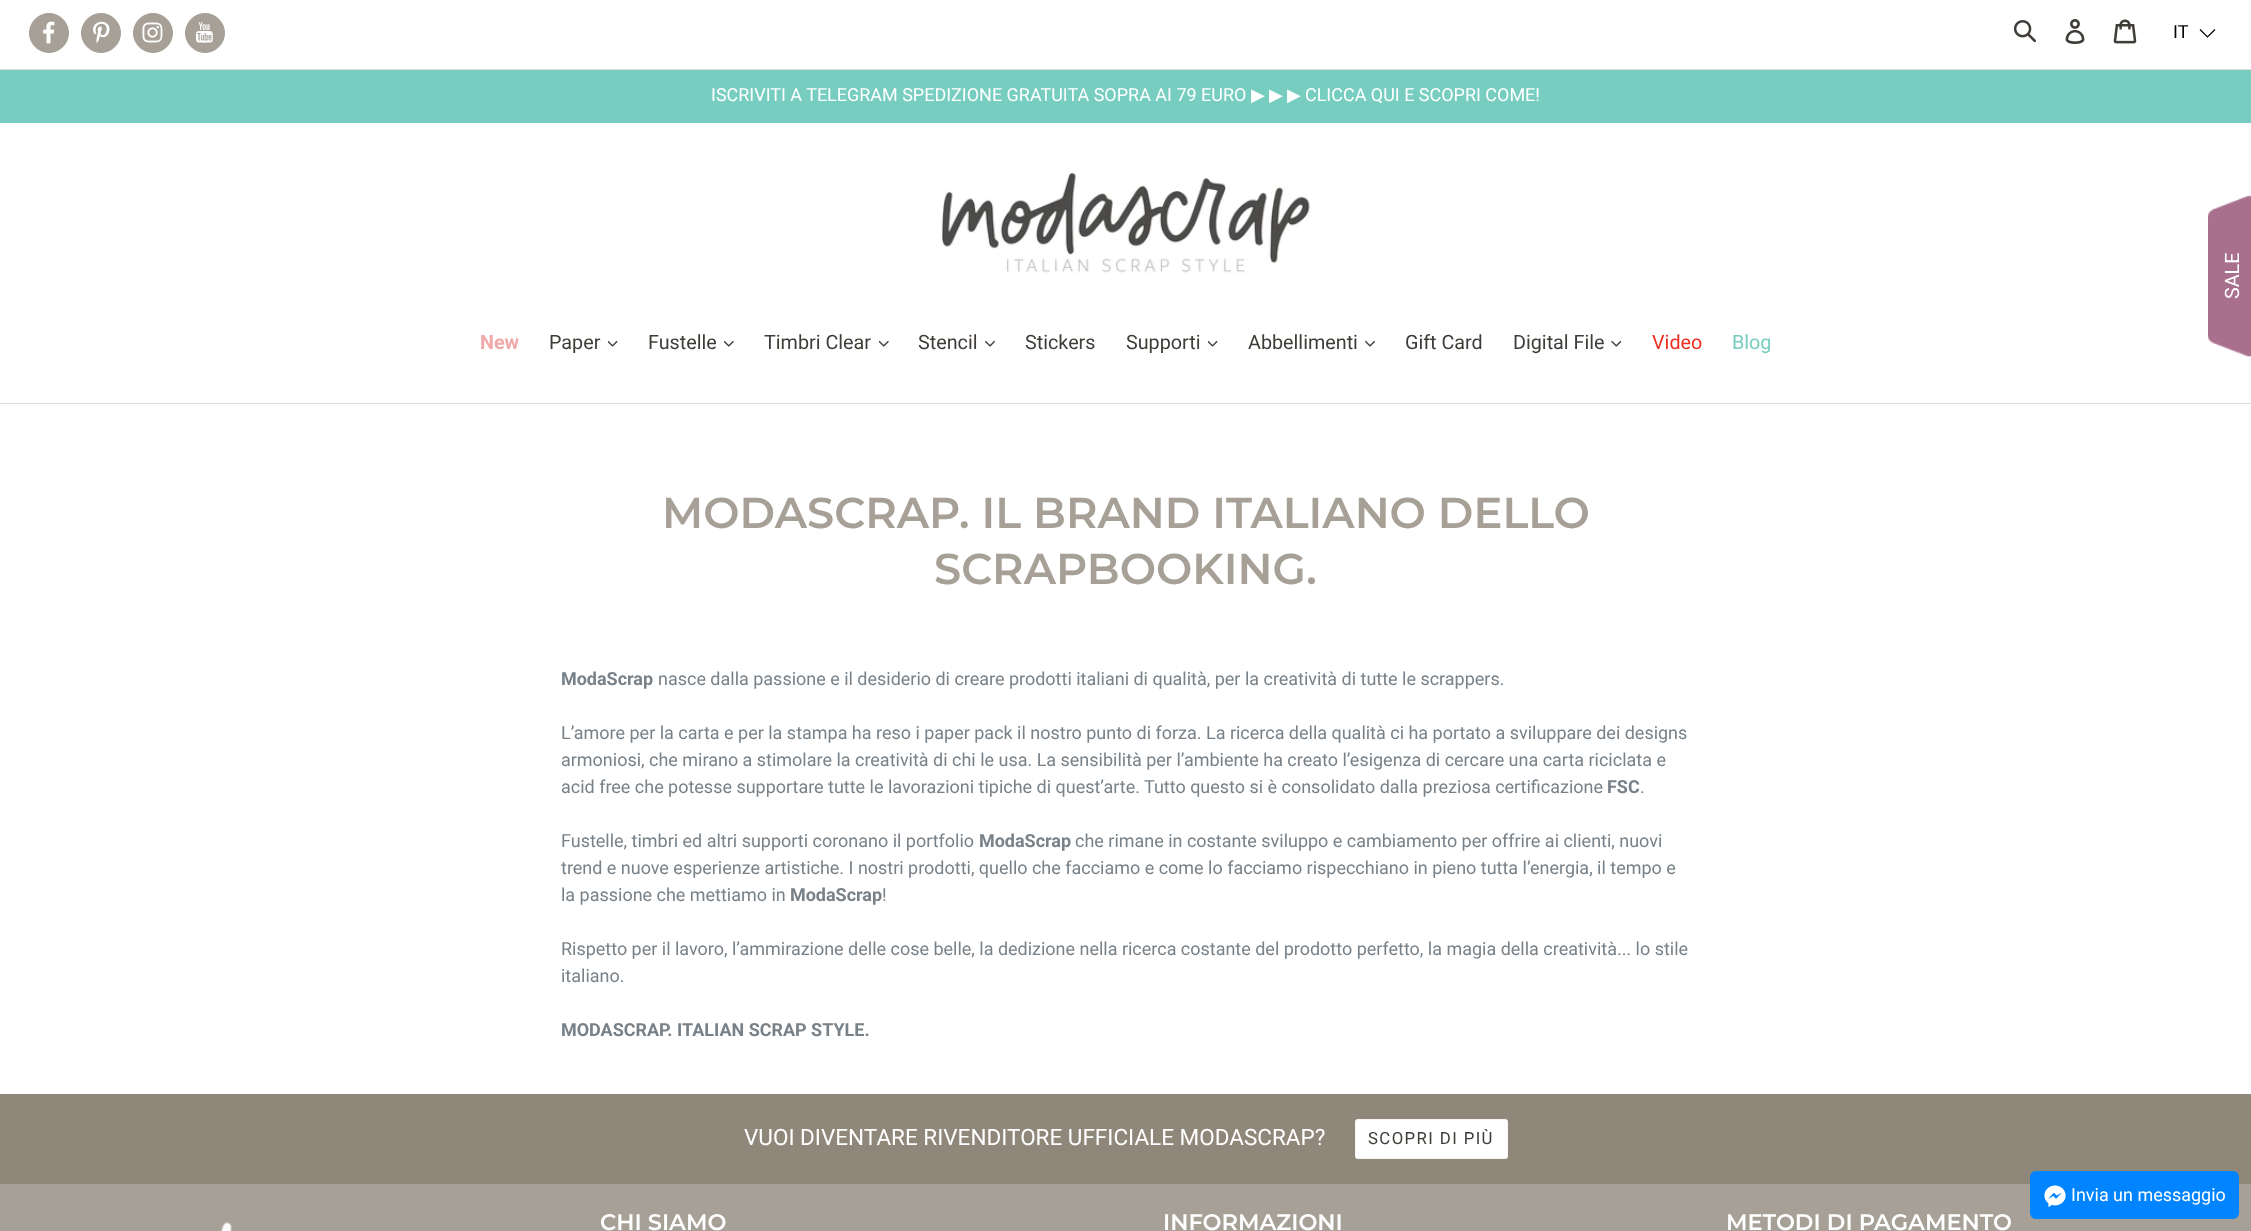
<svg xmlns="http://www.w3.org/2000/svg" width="2251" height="1231">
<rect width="100%" height="100%" fill="#fff"/>
<rect y="69" width="2251" height="1" fill="#dfdbd2"/>
<circle cx="49" cy="33" r="19.5" fill="#a6a096" stroke="#a6a096"/>
<image x="43" y="21" width="12" height="23" href="media/1.png"/>
<circle cx="101" cy="33" r="19.5" fill="#a6a096" stroke="#a6a096"/>
<image x="93" y="21" width="17" height="23" href="media/2.png"/>
<circle cx="153" cy="33" r="19.5" fill="#a6a096" stroke="#a6a096"/>
<image x="142" y="22" width="21" height="21" href="media/3.png"/>
<circle cx="205" cy="33" r="19.5" fill="#a6a096" stroke="#a6a096"/>
<image x="195" y="22" width="18" height="21" href="media/4.png"/>
<image x="2013" y="20" width="23" height="23" href="media/5.png"/>
<image x="2065" y="19" width="20" height="25" href="media/6.png"/>
<image x="2113" y="19" width="24" height="25" href="media/7.png"/>
<text x="2173" y="38" style="font-family:Roboto;font-size:18px;fill:#000">IT</text>
<path d="M2200 29.5l7.5 7.5l7.5-7.5" fill="none" stroke="#000" stroke-width="1.2"/>
<rect y="70" width="2251" height="53" fill="#77cec0"/>
<text x="711" y="101" style="font-family:Roboto;font-size:17.98px;fill:#fff">ISCRIVITI A TELEGRAM SPEDIZIONE GRATUITA SOPRA AI 79 EURO</text>
<text x="1251" y="101" style="font-family:DejaVu Sans;font-size:17.98px;fill:#fff">▶︎</text>
<text x="1269" y="101" style="font-family:DejaVu Sans;font-size:17.98px;fill:#fff">▶︎</text>
<text x="1287" y="101" style="font-family:DejaVu Sans;font-size:17.98px;fill:#fff">▶︎</text>
<text x="1305" y="101" style="font-family:Roboto;font-size:17.98px;fill:#fff">CLICCA QUI E SCOPRI COME!</text>
<image x="939" y="172" width="371" height="103" href="media/8.png"/>
<rect y="403" width="2251" height="1" fill="#dfdbd2"/>
<text x="480" y="349" style="font-family:Roboto;font-size:19.75px;font-weight:bold;fill:#f0a8a8">New</text>
<text x="549" y="349" style="font-family:Roboto;font-size:19.75px;fill:#403d39">Paper</text>
<image x="608" y="340" width="10" height="7" href="media/9.png"/>
<text x="648" y="349" style="font-family:Roboto;font-size:19.75px;fill:#403d39">Fustelle</text>
<image x="724" y="340" width="10" height="7" href="media/10.png"/>
<text x="764" y="349" style="font-family:Roboto;font-size:19.75px;fill:#403d39">Timbri Clear</text>
<image x="879" y="340" width="10" height="7" href="media/10.png"/>
<text x="918" y="349" style="font-family:Roboto;font-size:19.75px;fill:#403d39">Stencil</text>
<image x="985" y="340" width="10" height="7" href="media/11.png"/>
<text x="1025" y="349" style="font-family:Roboto;font-size:19.75px;fill:#403d39">Stickers</text>
<text x="1126" y="349" style="font-family:Roboto;font-size:19.75px;fill:#403d39">Supporti</text>
<image x="1208" y="340" width="10" height="7" href="media/9.png"/>
<text x="1248" y="349" style="font-family:Roboto;font-size:19.75px;fill:#403d39">Abbellimenti</text>
<image x="1365" y="340" width="10" height="7" href="media/11.png"/>
<text x="1405" y="349" style="font-family:Roboto;font-size:19.75px;fill:#403d39">Gift Card</text>
<text x="1513" y="349" style="font-family:Roboto;font-size:19.75px;fill:#403d39">Digital File</text>
<image x="1611" y="340" width="10" height="7" href="media/12.png"/>
<text x="1652" y="349" style="font-family:Roboto;font-size:19.75px;fill:#ec2e21">Video</text>
<text x="1732" y="349" style="font-family:Roboto;font-size:19.75px;fill:#77cec0">Blog</text>
<image x="2208" y="195" width="43" height="162" href="media/13.png"/>
<text x="2239" y="299" transform="rotate(-90 2239 299)" style="font-family:Roboto;font-size:19.75px;fill:#fff">SALE</text>
<text x="662" y="528" style="font-family:Montserrat;font-size:43.15px;font-weight:600;fill:#a6a096">MODASCRAP. IL BRAND ITALIANO DELLO</text>
<text x="934" y="584" style="font-family:Montserrat;font-size:43.15px;font-weight:600;fill:#a6a096">SCRAPBOOKING.</text>
<text x="561" y="685" style="font-family:Roboto;font-size:17.98px;font-weight:bold;fill:#788188">ModaScrap</text>
<text x="658" y="685" style="font-family:Roboto;font-size:17.98px;fill:#788188">nasce dalla passione e il desiderio di creare prodotti italiani di qualità, per la creatività di tutte le scrappers.</text>
<text x="561" y="739" style="font-family:Roboto;font-size:17.98px;fill:#788188">L’amore per la carta e per la stampa ha reso i paper pack il nostro punto di forza. La ricerca della qualità ci ha portato a sviluppare dei designs</text>
<text x="561" y="766" style="font-family:Roboto;font-size:17.98px;fill:#788188">armoniosi, che mirano a stimolare la creatività di chi le usa. La sensibilità per l’ambiente ha creato l’esigenza di cercare una carta riciclata e</text>
<text x="561" y="793" style="font-family:Roboto;font-size:17.98px;fill:#788188">acid free che potesse supportare tutte le lavorazioni tipiche di quest’arte. Tutto questo si è consolidato dalla preziosa certificazione</text>
<text x="1607" y="793" style="font-family:Roboto;font-size:17.98px;font-weight:bold;fill:#788188">FSC</text>
<text x="1640" y="793" style="font-family:Roboto;font-size:17.98px;fill:#788188">.</text>
<text x="561" y="847" style="font-family:Roboto;font-size:17.98px;fill:#788188">Fustelle, timbri ed altri supporti coronano il portfolio</text>
<text x="979" y="847" style="font-family:Roboto;font-size:17.98px;font-weight:bold;fill:#788188">ModaScrap</text>
<text x="1075" y="847" style="font-family:Roboto;font-size:17.98px;fill:#788188">che rimane in costante sviluppo e cambiamento per offrire ai clienti, nuovi</text>
<text x="561" y="874" style="font-family:Roboto;font-size:17.98px;fill:#788188">trend e nuove esperienze artistiche. I nostri prodotti, quello che facciamo e come lo facciamo rispecchiano in pieno tutta l’energia, il tempo e</text>
<text x="561" y="901" style="font-family:Roboto;font-size:17.98px;fill:#788188">la passione che mettiamo in</text>
<text x="790" y="901" style="font-family:Roboto;font-size:17.98px;font-weight:bold;fill:#788188">ModaScrap</text>
<text x="882" y="901" style="font-family:Roboto;font-size:17.98px;fill:#788188">!</text>
<text x="561" y="955" style="font-family:Roboto;font-size:17.98px;fill:#788188">Rispetto per il lavoro, l’ammirazione delle cose belle, la dedizione nella ricerca costante del prodotto perfetto, la magia della creatività... lo stile</text>
<text x="561" y="982" style="font-family:Roboto;font-size:17.98px;fill:#788188">italiano.</text>
<text x="561" y="1036" style="font-family:Roboto;font-size:17.98px;font-weight:bold;fill:#788188">MODASCRAP. ITALIAN SCRAP STYLE.</text>
<rect y="1184" width="2251" height="47" fill="#a6a096"/>
<rect y="1094" width="2251" height="90" fill="#8f877a"/>
<text x="744" y="1145" style="font-family:Roboto;font-size:22.5px;fill:#fff">VUOI DIVENTARE RIVENDITORE UFFICIALE MODASCRAP?</text>
<rect x="1355.5" y="1119.5" width="152" height="39" rx="2" fill="#fff" stroke="#f8f6f4"/>
<text x="1368" y="1144" style="font-family:Roboto;font-size:16.75px;letter-spacing:1.4px;fill:#403d39">SCOPRI DI PIÙ</text>
<image x="221" y="1222" width="11" height="9" href="media/14.png"/>
<text x="600" y="1230" style="font-family:Montserrat;font-size:22.5px;font-weight:600;fill:#fff">CHI SIAMO</text>
<text x="1163" y="1230" style="font-family:Montserrat;font-size:22.5px;font-weight:600;fill:#fff">INFORMAZIONI</text>
<text x="1726" y="1230" style="font-family:Montserrat;font-size:22.5px;font-weight:600;fill:#fff">METODI DI PAGAMENTO</text>
<rect x="2030" y="1171" width="209" height="48" rx="6" fill="#0084ff"/>
<image x="2044" y="1185" width="22" height="22" href="media/15.png"/>
<text x="2071" y="1201" style="font-family:Roboto;font-size:17.98px;fill:#fff">Invia un messaggio</text>
</svg>
